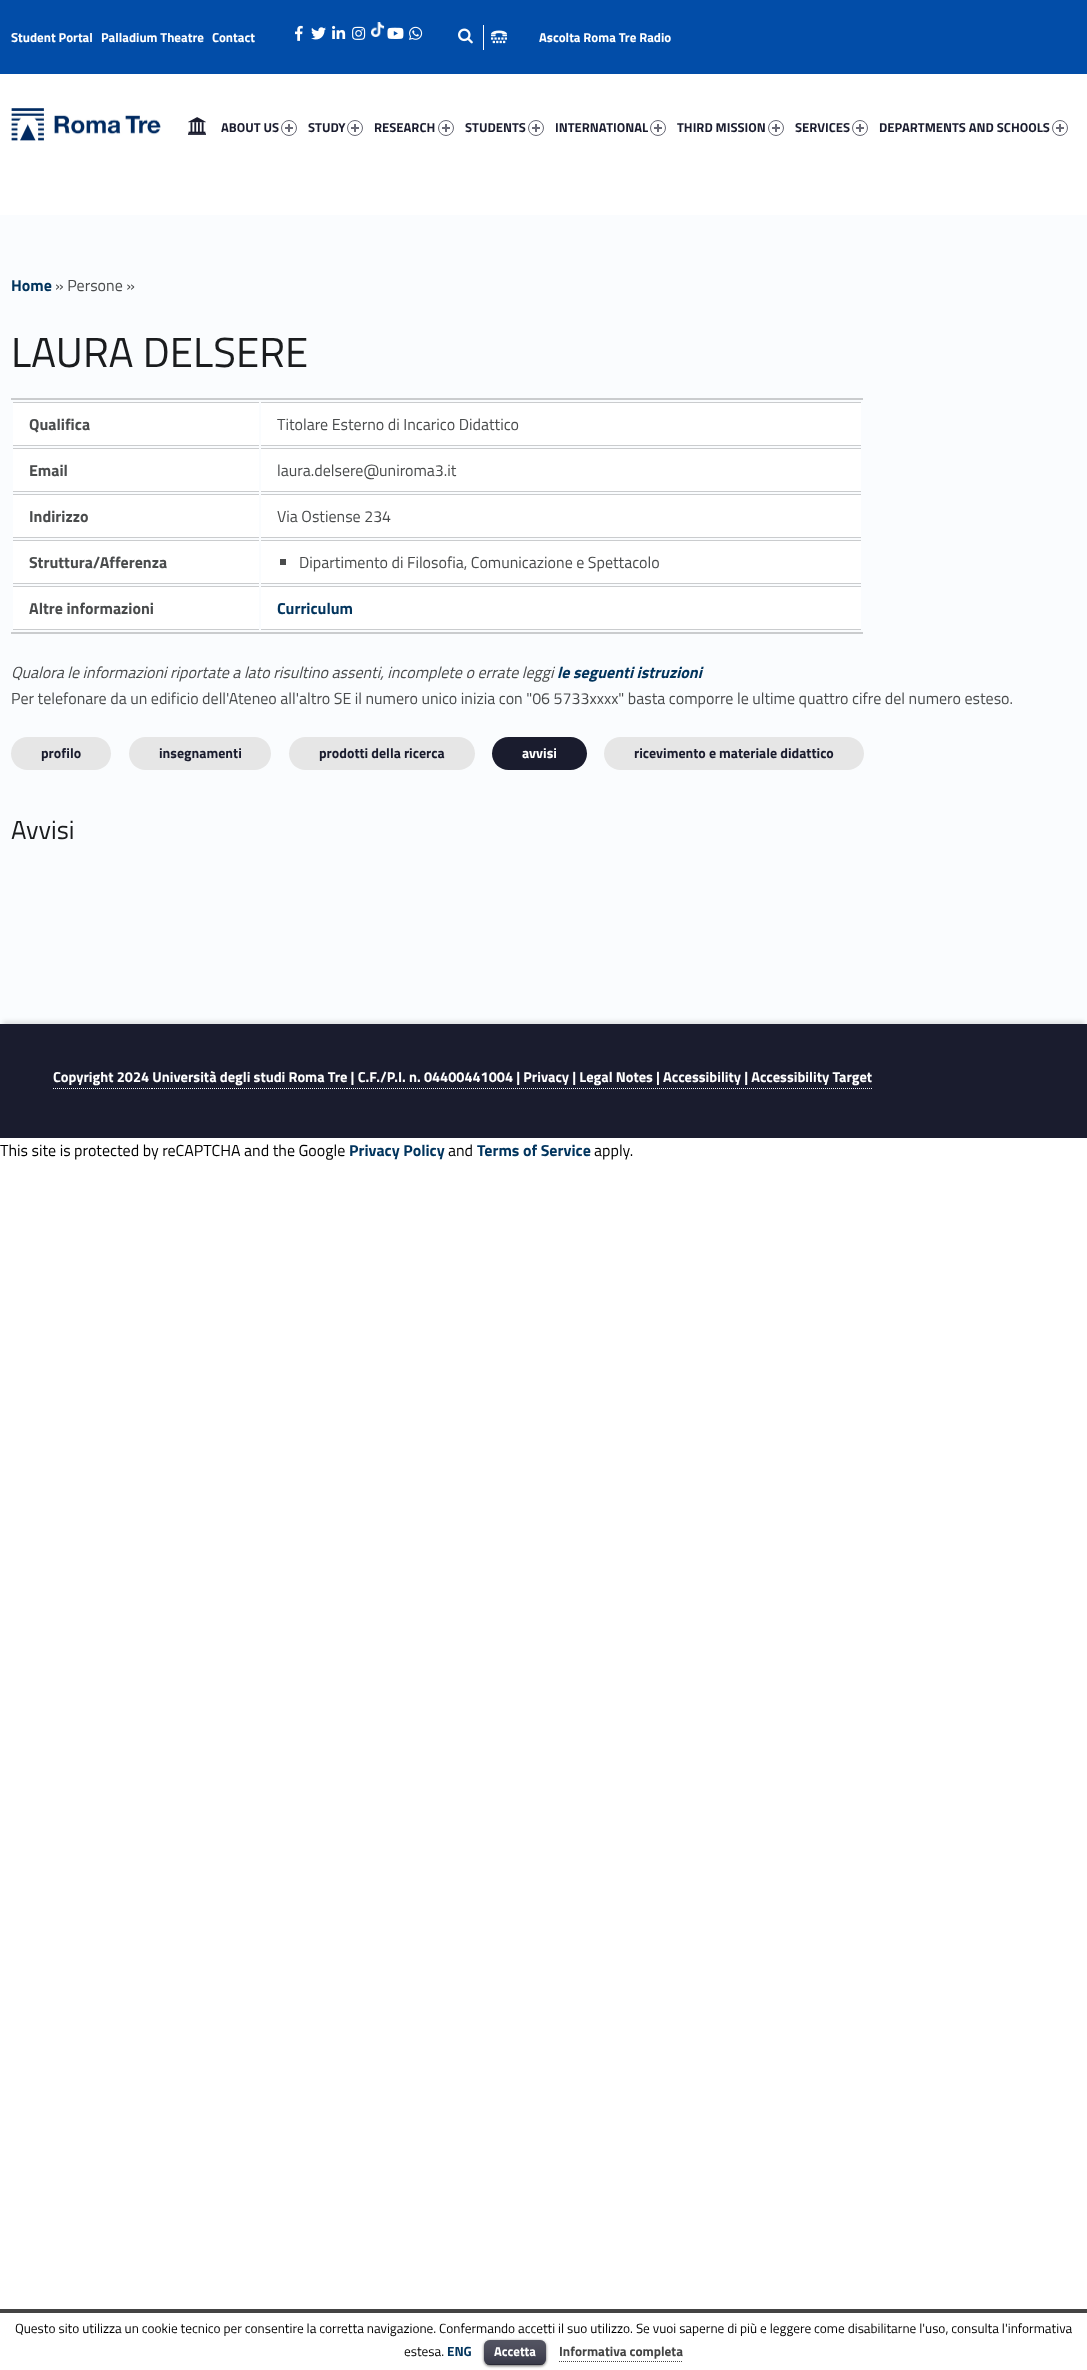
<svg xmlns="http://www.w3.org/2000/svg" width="1087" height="2370">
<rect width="100%" height="100%" fill="#fff"/>
<rect width="1087" height="74" fill="#024da8"/>
<text x="11" y="42" style="font-family:Titillium Web;font-size:13px;font-weight:bold;fill:#fff">Student Portal</text>
<text x="101" y="42" style="font-family:Titillium Web;font-size:13px;font-weight:bold;fill:#fff">Palladium Theatre</text>
<text x="212" y="42" style="font-family:Titillium Web;font-size:13px;font-weight:bold;fill:#fff">Contact</text>
<image x="295" y="25" width="8" height="16" href="media/1.png"/>
<image x="311" y="27" width="15" height="13" href="media/2.png"/>
<image x="332" y="25" width="14" height="14" href="media/3.png"/>
<image x="352" y="26" width="14" height="14" href="media/4.png"/>
<image x="371" y="22" width="14" height="15" href="media/5.png"/>
<image x="387" y="27" width="17" height="12" href="media/6.png"/>
<image x="409" y="26" width="14" height="14" href="media/7.png"/>
<image x="458" y="28" width="15" height="16" href="media/8.png"/>
<rect x="483" y="25" width="1" height="25" fill="#fff"/>
<image x="491" y="30" width="16" height="14" href="media/9.png"/>
<text x="539" y="42" style="font-family:Titillium Web;font-size:13px;font-weight:bold;fill:#fff">Ascolta Roma Tre Radio</text>
<image x="11" y="108" width="150" height="33" href="media/10.png"/>
<image x="188" y="117" width="18" height="18" href="media/11.png"/>
<text x="221" y="132" style="font-family:Titillium Web;font-size:13px;font-weight:bold;fill:#1a1c2e">ABOUT US</text>
<circle cx="289" cy="128" r="7.5" fill="none" stroke="#686975"/>
<rect x="285" y="127" width="8" height="2" fill="#686975"/>
<rect x="288" y="124" width="2" height="8" fill="#686975"/>
<text x="308" y="132" style="font-family:Titillium Web;font-size:13px;font-weight:bold;fill:#1a1c2e">STUDY</text>
<circle cx="355" cy="128" r="7.5" fill="none" stroke="#686975"/>
<rect x="351" y="127" width="8" height="2" fill="#686975"/>
<rect x="354" y="124" width="2" height="8" fill="#686975"/>
<text x="374" y="132" style="font-family:Titillium Web;font-size:13px;font-weight:bold;fill:#1a1c2e">RESEARCH</text>
<circle cx="446" cy="128" r="7.5" fill="none" stroke="#686975"/>
<rect x="442" y="127" width="8" height="2" fill="#686975"/>
<rect x="445" y="124" width="2" height="8" fill="#686975"/>
<text x="465" y="132" style="font-family:Titillium Web;font-size:13px;font-weight:bold;fill:#1a1c2e">STUDENTS</text>
<circle cx="536" cy="128" r="7.5" fill="none" stroke="#686975"/>
<rect x="532" y="127" width="8" height="2" fill="#686975"/>
<rect x="535" y="124" width="2" height="8" fill="#686975"/>
<text x="555" y="132" style="font-family:Titillium Web;font-size:13px;font-weight:bold;fill:#1a1c2e">INTERNATIONAL</text>
<circle cx="658" cy="128" r="7.5" fill="none" stroke="#686975"/>
<rect x="654" y="127" width="8" height="2" fill="#686975"/>
<rect x="657" y="124" width="2" height="8" fill="#686975"/>
<text x="677" y="132" style="font-family:Titillium Web;font-size:13px;font-weight:bold;fill:#1a1c2e">THIRD MISSION</text>
<circle cx="776" cy="128" r="7.5" fill="none" stroke="#686975"/>
<rect x="772" y="127" width="8" height="2" fill="#686975"/>
<rect x="775" y="124" width="2" height="8" fill="#686975"/>
<text x="795" y="132" style="font-family:Titillium Web;font-size:13px;font-weight:bold;fill:#1a1c2e">SERVICES</text>
<circle cx="860" cy="128" r="7.5" fill="none" stroke="#686975"/>
<rect x="856" y="127" width="8" height="2" fill="#686975"/>
<rect x="859" y="124" width="2" height="8" fill="#686975"/>
<text x="879" y="132" style="font-family:Titillium Web;font-size:13px;font-weight:bold;fill:#1a1c2e">DEPARTMENTS AND SCHOOLS</text>
<circle cx="1060" cy="128" r="7.5" fill="none" stroke="#686975"/>
<rect x="1056" y="127" width="8" height="2" fill="#686975"/>
<rect x="1059" y="124" width="2" height="8" fill="#686975"/>
<rect y="215" width="1087" height="809" fill="#fafcfe"/>
<text x="11" y="291" style="font-family:Titillium Web;font-size:16px;font-weight:bold;fill:#01345d">Home</text>
<text x="55" y="291" style="font-family:Titillium Web;font-size:16px;fill:#4a4c4d">» Persone »</text>
<text x="11" y="367" style="font-family:Titillium Web;font-size:42px;fill:#1a1c1e">LAURA DELSERE</text>
<rect x="11" y="398" width="852" height="2" fill="#caccce"/>
<rect x="11" y="632" width="852" height="2" fill="#caccce"/>
<rect x="13" y="403" width="246" height="42" fill="#fff"/>
<rect x="13" y="402" width="246" height="1" fill="#caccce"/>
<rect x="13" y="445" width="246" height="1" fill="#caccce"/>
<text x="29" y="430" style="font-family:Titillium Web;font-size:16px;font-weight:bold;fill:#4a4c4d">Qualifica</text>
<rect x="261" y="403" width="600" height="42" fill="#fff"/>
<rect x="261" y="402" width="600" height="1" fill="#caccce"/>
<rect x="261" y="445" width="600" height="1" fill="#caccce"/>
<text x="277" y="430" style="font-family:Titillium Web;font-size:16px;fill:#4a4c4d">Titolare Esterno di Incarico Didattico</text>
<rect x="13" y="449" width="246" height="42" fill="#fff"/>
<rect x="13" y="448" width="246" height="1" fill="#caccce"/>
<rect x="13" y="491" width="246" height="1" fill="#caccce"/>
<text x="29" y="476" style="font-family:Titillium Web;font-size:16px;font-weight:bold;fill:#4a4c4d">Email</text>
<rect x="261" y="449" width="600" height="42" fill="#fff"/>
<rect x="261" y="448" width="600" height="1" fill="#caccce"/>
<rect x="261" y="491" width="600" height="1" fill="#caccce"/>
<text x="277" y="476" style="font-family:Titillium Web;font-size:16px;fill:#4a4c4d">laura.delsere@uniroma3.it</text>
<rect x="13" y="495" width="246" height="42" fill="#fff"/>
<rect x="13" y="494" width="246" height="1" fill="#caccce"/>
<rect x="13" y="537" width="246" height="1" fill="#caccce"/>
<text x="29" y="522" style="font-family:Titillium Web;font-size:16px;font-weight:bold;fill:#4a4c4d">Indirizzo</text>
<rect x="261" y="495" width="600" height="42" fill="#fff"/>
<rect x="261" y="494" width="600" height="1" fill="#caccce"/>
<rect x="261" y="537" width="600" height="1" fill="#caccce"/>
<text x="277" y="522" style="font-family:Titillium Web;font-size:16px;fill:#4a4c4d">Via Ostiense 234</text>
<rect x="13" y="541" width="246" height="42" fill="#fff"/>
<rect x="13" y="540" width="246" height="1" fill="#caccce"/>
<rect x="13" y="583" width="246" height="1" fill="#caccce"/>
<text x="29" y="568" style="font-family:Titillium Web;font-size:16px;font-weight:bold;fill:#4a4c4d">Struttura/Afferenza</text>
<rect x="261" y="541" width="600" height="42" fill="#fff"/>
<rect x="261" y="540" width="600" height="1" fill="#caccce"/>
<rect x="261" y="583" width="600" height="1" fill="#caccce"/>
<rect x="280" y="559" width="6" height="6" fill="#4a4c4d"/>
<text x="299" y="568" style="font-family:Titillium Web;font-size:16px;fill:#4a4c4d">Dipartimento di Filosofia, Comunicazione e Spettacolo</text>
<rect x="13" y="587" width="246" height="42" fill="#fff"/>
<rect x="13" y="586" width="246" height="1" fill="#caccce"/>
<rect x="13" y="629" width="246" height="1" fill="#caccce"/>
<text x="29" y="614" style="font-family:Titillium Web;font-size:16px;font-weight:bold;fill:#4a4c4d">Altre informazioni</text>
<rect x="261" y="587" width="600" height="42" fill="#fff"/>
<rect x="261" y="586" width="600" height="1" fill="#caccce"/>
<rect x="261" y="629" width="600" height="1" fill="#caccce"/>
<text x="277" y="614" style="font-family:Titillium Web;font-size:16px;font-weight:bold;fill:#01345d">Curriculum</text>
<text x="11" y="678" style="font-family:Titillium Web;font-size:16px;font-style:italic;fill:#4a4c4d">Qualora le informazioni riportate a lato risultino assenti, incomplete o errate leggi</text>
<text x="557" y="678" style="font-family:Titillium Web;font-size:16px;font-weight:bold;font-style:italic;fill:#01345d">le seguenti istruzioni</text>
<text x="11" y="704" style="font-family:Titillium Web;font-size:16px;fill:#4a4c4d">Per telefonare da un edificio dell'Ateneo all'altro SE il numero unico inizia con "06 5733xxxx" basta comporre le ultime quattro cifre del numero esteso.</text>
<rect x="11" y="737" width="100" height="33" rx="16.5" fill="#e6e6e6"/>
<text x="41" y="758" style="font-family:Titillium Web;font-size:14px;font-weight:bold;fill:#1a1c2e">profilo</text>
<rect x="129" y="737" width="142" height="33" rx="16.5" fill="#e6e6e6"/>
<text x="159" y="758" style="font-family:Titillium Web;font-size:14px;font-weight:bold;fill:#1a1c2e">insegnamenti</text>
<rect x="289" y="737" width="186" height="33" rx="16.5" fill="#e6e6e6"/>
<text x="319" y="758" style="font-family:Titillium Web;font-size:14px;font-weight:bold;fill:#1a1c2e">prodotti della ricerca</text>
<rect x="492" y="737" width="95" height="33" rx="16.5" fill="#1a1c2e"/>
<text x="522" y="758" style="font-family:Titillium Web;font-size:14px;font-weight:bold;fill:#fff">avvisi</text>
<rect x="604" y="737" width="260" height="33" rx="16.5" fill="#e6e6e6"/>
<text x="634" y="758" style="font-family:Titillium Web;font-size:14px;font-weight:bold;fill:#1a1c2e">ricevimento e materiale didattico</text>
<text x="11" y="839" style="font-family:Titillium Web;font-size:26px;fill:#1a1c1e">Avvisi</text>
<rect x="3" y="1021" width="1081" height="108" fill="#0000001a" filter="blur(2px)"/>
<rect y="1024" width="1087" height="114" fill="#1a1c2e"/>
<text x="53" y="1082" style="font-family:Titillium Web;font-size:14.48px;font-weight:bold;fill:#fff">Copyright 2024 Università degli studi Roma Tre | C.F./P.I. n. 04400441004 | Privacy | Legal Notes | Accessibility | Accessibility Target</text>
<path d="M53 1088.5h99" fill="none" stroke="#fafcfe" stroke-dasharray="1 1"/>
<path d="M152 1088.5h195" fill="none" stroke="#fafcfe" stroke-dasharray="1 1"/>
<path d="M347 1088.5h176" fill="none" stroke="#fafcfe" stroke-dasharray="1 1"/>
<path d="M523 1088.5h46m0 0h10" fill="none" stroke="#fafcfe" stroke-dasharray="1 1"/>
<path d="M579 1088.5h74" fill="none" stroke="#fafcfe" stroke-dasharray="1 1"/>
<path d="M653 1088.5h10" fill="none" stroke="#fafcfe" stroke-dasharray="1 1"/>
<path d="M663 1088.5h78" fill="none" stroke="#fafcfe" stroke-dasharray="1 1"/>
<path d="M741 1088.5h10" fill="none" stroke="#fafcfe" stroke-dasharray="1 1"/>
<path d="M751 1088.5h121" fill="none" stroke="#fafcfe" stroke-dasharray="1 1"/>
<text x="0" y="1156" style="font-family:Titillium Web;font-size:16px;fill:#000">This site is protected by reCAPTCHA and the Google</text>
<text x="349" y="1156" style="font-family:Titillium Web;font-size:16px;font-weight:bold;fill:#01345d">Privacy Policy</text>
<text x="448" y="1156" style="font-family:Titillium Web;font-size:16px;fill:#000">and</text>
<text x="477" y="1156" style="font-family:Titillium Web;font-size:16px;font-weight:bold;fill:#01345d">Terms of Service</text>
<text x="594" y="1156" style="font-family:Titillium Web;font-size:16px;fill:#000">apply.</text>
<rect y="2309" width="1087" height="4" fill="#444"/>
<text x="15" y="2333" style="font-family:Titillium Web;font-size:13.33px;fill:#000">Questo sito utilizza un cookie tecnico per consentire la corretta navigazione. Confermando accetti il suo utilizzo. Se vuoi saperne di più e leggere come disabilitarne l'uso, consulta l'informativa</text>
<text x="404" y="2356" style="font-family:Titillium Web;font-size:13.33px;fill:#000">estesa.</text>
<text x="447" y="2356" style="font-family:Titillium Web;font-size:13.33px;font-weight:bold;fill:#01345d">ENG</text>
<rect x="484" y="2341" width="62" height="25" rx="6" fill="#00000099" filter="blur(1.5px)"/>
<rect x="484" y="2340" width="62" height="25" rx="6" fill="#1a1b2d"/>
<image x="484" y="2340" width="62" height="25" href="media/12.png"/>
<rect x="487" y="2364" width="56" height="1" fill="#00000040"/>
<text x="494" y="2356" style="font-family:Titillium Web;font-size:13px;font-weight:bold;fill:#fff">Accetta</text>
<text x="559" y="2356" style="font-family:Titillium Web;font-size:13.33px;font-weight:bold;fill:#444">Informativa completa</text>
<path d="M559 2361.5h124" fill="none" stroke="#444" stroke-dasharray="1 1"/>
</svg>
